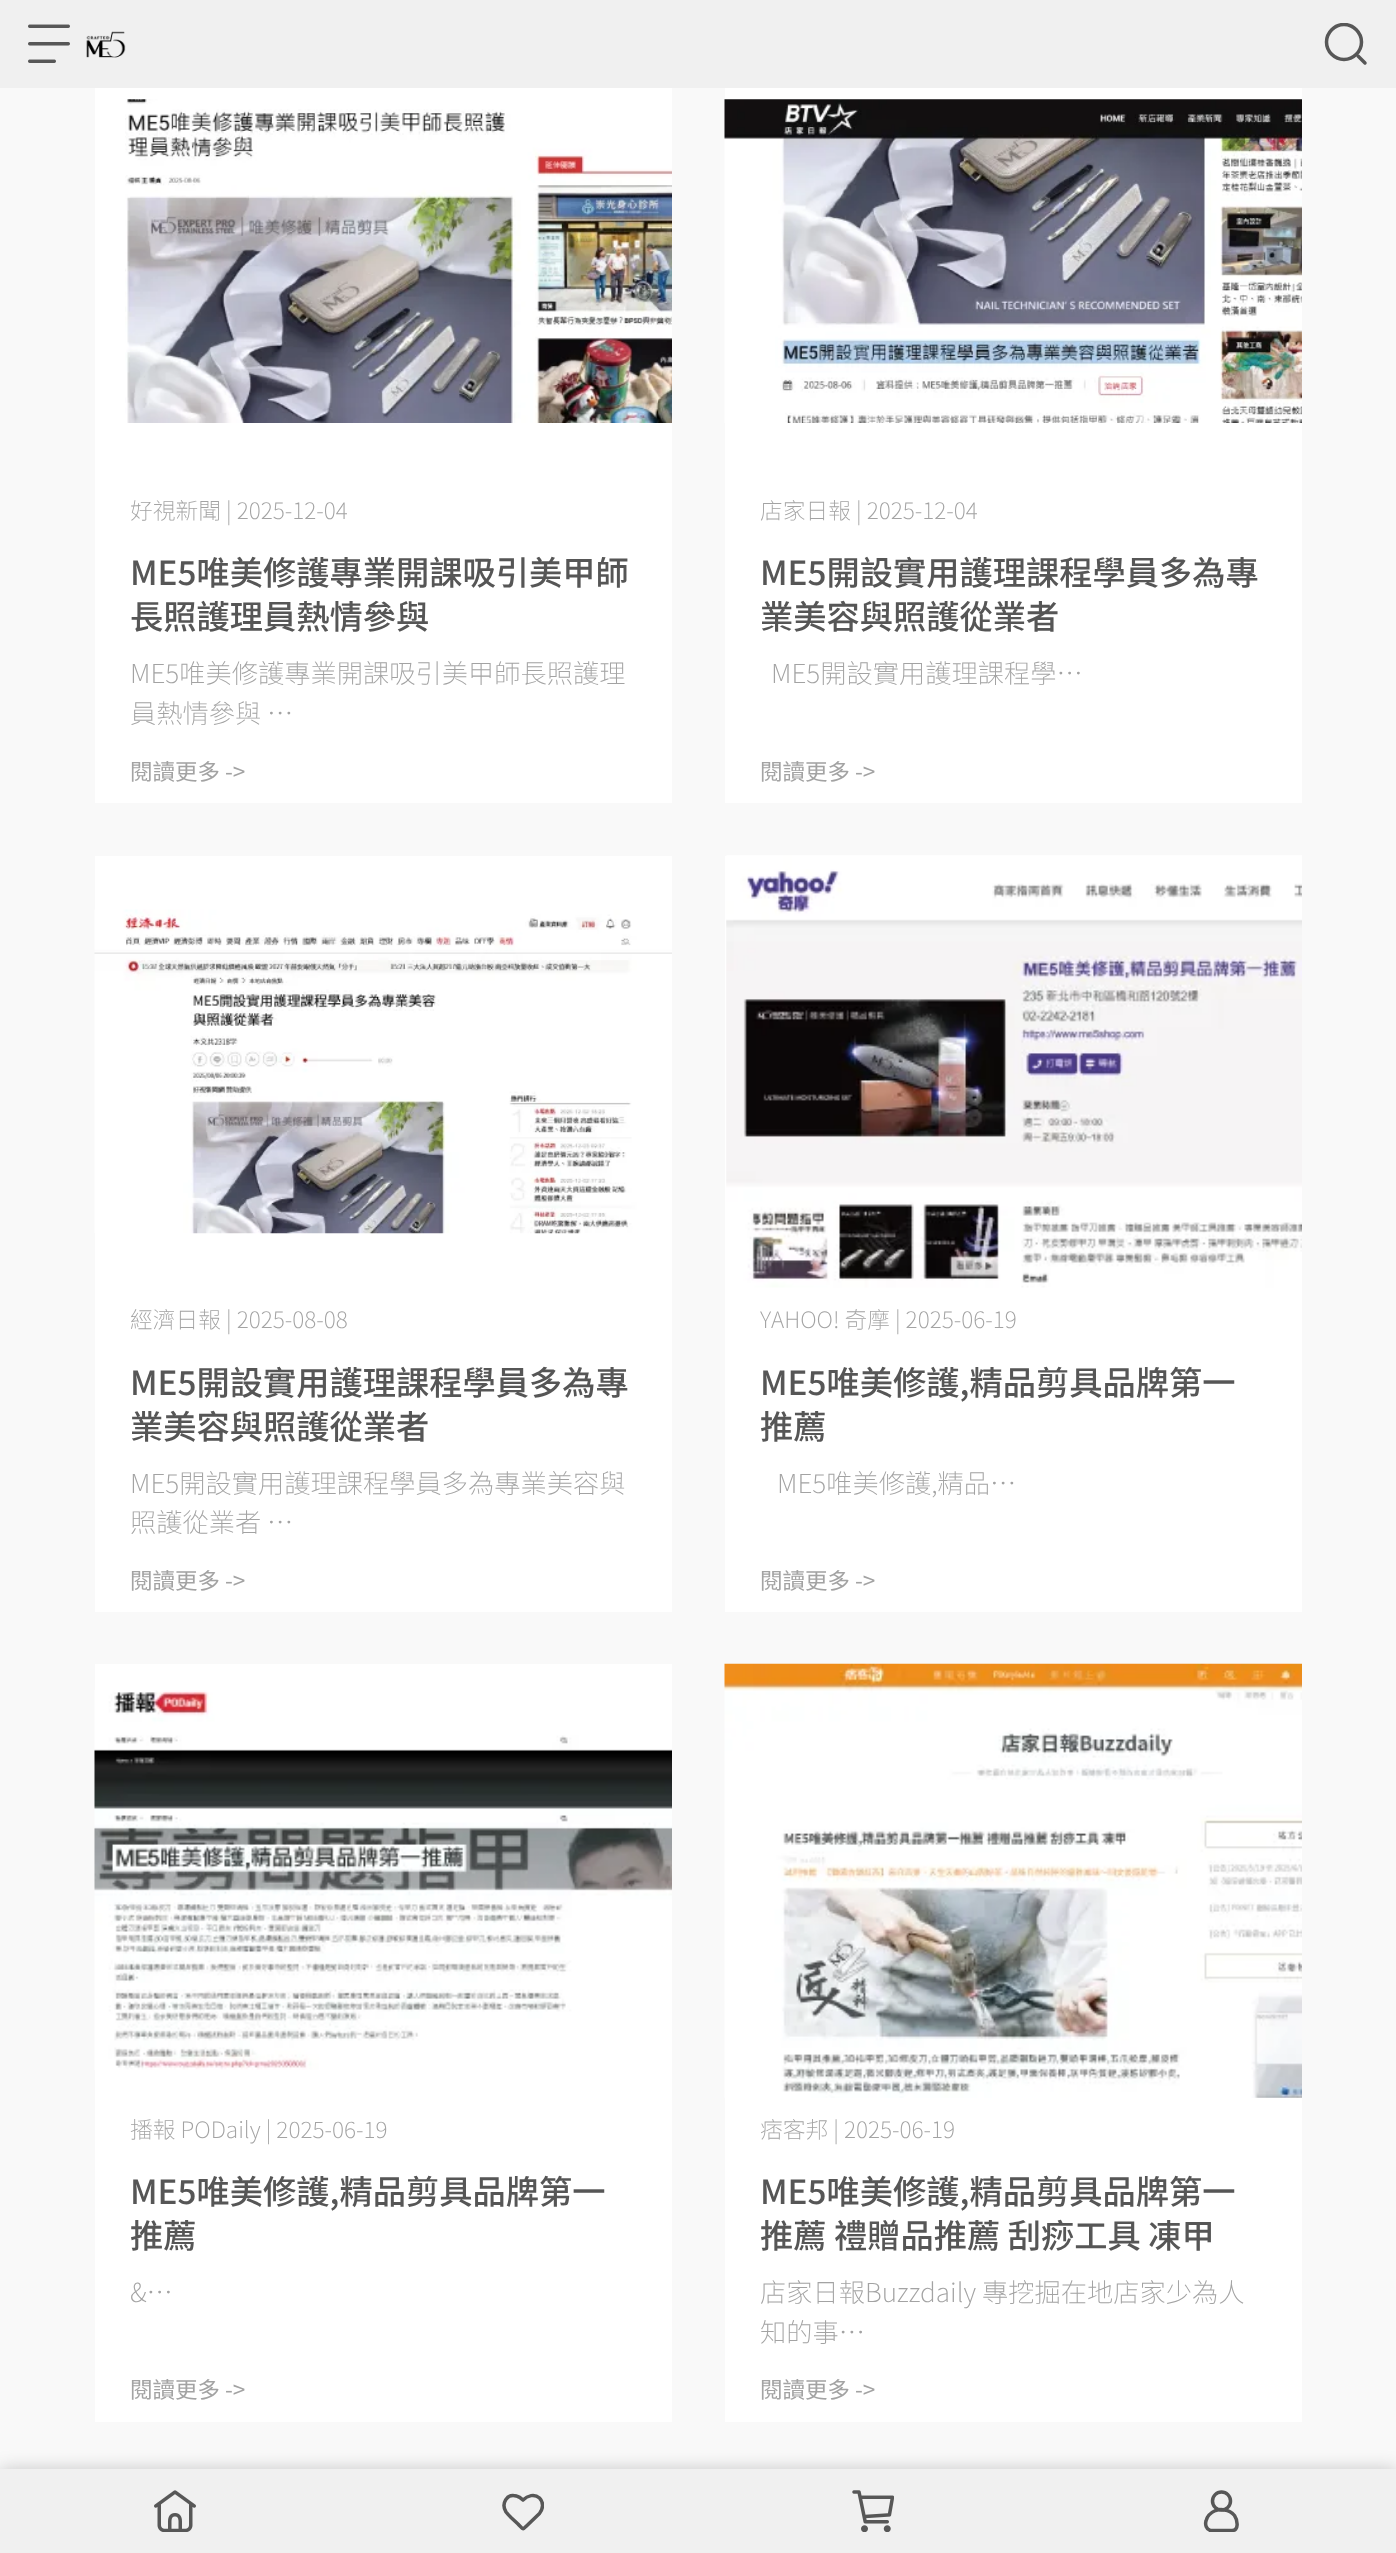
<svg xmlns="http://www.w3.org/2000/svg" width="1396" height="2553">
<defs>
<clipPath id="clip1"><rect x="1323" y="23" width="46" height="42"/></clipPath>
<clipPath id="clip2"><rect x="502" y="2490" width="42" height="42"/></clipPath>
<clipPath id="clip3"><rect x="1201" y="2490" width="42" height="42"/></clipPath>
</defs>
<rect width="100%" height="100%" fill="#f9f9f9"/>
<rect width="1396" height="88" fill="#f0f0f0"/>
<image x="28" y="24" width="42" height="39" href="media/1.png"/>
<image x="86" y="31" width="40" height="27" href="media/2.png"/>
<g clip-path="url(#clip1)">
<path d="M1361.5 42c0 9.5-8 17.5-17.5 17.5c-9.5 0-17.5-8-17.5-17.5c0-9.5 8-17.5 17.5-17.5c9.5 0 17.5 8 17.5 17.5z" fill="none" stroke="#575757" stroke-width="3.5" stroke-linecap="round" stroke-linejoin="round"/>
</g>
<path d="M1358 56l7 7" fill="none" stroke="#575757" stroke-width="3.5" stroke-linecap="round" stroke-linejoin="round"/>
<rect y="2469" width="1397" height="84" fill="#00000033" filter="blur(9px)"/>
<rect y="2469" width="1396" height="84" fill="#f0f0f0"/>
<image x="154" y="2490" width="42" height="42" href="media/3.png"/>
<g clip-path="url(#clip2)">
<path d="M539.5 2498c-5-4.5-12-2.5-16.5 2c-1.5-1.5-4-3.5-6.5-4c-10-3-15.5 8-10.5 16c1.5 2 3 3.5 5 5.5l7 6.5c5 5 4 6.5 8.5 2l13-12.5c3.5-4.5 4.5-11 0-15.5z" fill="none" stroke="#575757" stroke-width="3.5" stroke-linecap="round" stroke-linejoin="round"/>
</g>
<image x="852" y="2490" width="42" height="42" href="media/4.png"/>
<circle cx="1221.5" cy="2501" r="9" fill="none" stroke="#575757" stroke-width="3.5"/>
<g clip-path="url(#clip3)">
<path d="M1231.5 2530.5h-21c-4.5-1-5.5-6-4.5-9.5c1-5 5-8.5 9.5-10.5c3-1 6-1.5 9-.5c4 .5 7.5 2.5 10 5.5c3 4.5 5 15.5-3 15z" fill="none" stroke="#575757" stroke-width="3.5"/>
</g>
<rect x="95" y="88" width="577" height="715" fill="#fff"/>
<image x="125" y="99" width="547" height="324" href="media/5.png"/>
<text x="130" y="519" style="font-family:Noto Sans TC;font-size:22.75px;font-weight:200;fill:#a3a3a3">好視新聞 | 2025-12-04</text>
<text x="130" y="585" style="font-family:Noto Sans TC;font-size:33.25px;font-weight:500;fill:#565656">ME5唯美修護專業開課吸引美甲師</text>
<text x="130" y="629" style="font-family:Noto Sans TC;font-size:33.25px;font-weight:500;fill:#565656">長照護理員熱情參與</text>
<text x="130" y="683" style="font-family:Noto Sans TC;font-size:26.25px;font-weight:200;fill:#a3a3a3">ME5唯美修護專業開課吸引美甲師長照護理</text>
<text x="130" y="723" style="font-family:Noto Sans TC;font-size:26.25px;font-weight:200;fill:#a3a3a3">員熱情參與 ⋯</text>
<text x="130" y="780" style="font-family:Noto Sans TC;font-size:22.5px;fill:#a3a3a3">閱讀更多 -&gt;</text>
<rect x="725" y="88" width="577" height="715" fill="#fff"/>
<image x="724" y="99" width="578" height="324" href="media/6.png"/>
<text x="760" y="519" style="font-family:Noto Sans TC;font-size:22.75px;font-weight:200;fill:#a3a3a3">店家日報 | 2025-12-04</text>
<text x="760" y="585" style="font-family:Noto Sans TC;font-size:33.25px;font-weight:500;fill:#565656">ME5開設實用護理課程學員多為專</text>
<text x="760" y="629" style="font-family:Noto Sans TC;font-size:33.25px;font-weight:500;fill:#565656">業美容與照護從業者</text>
<text x="771" y="683" style="font-family:Noto Sans TC;font-size:26.25px;font-weight:200;fill:#a3a3a3">ME5開設實用護理課程學⋯</text>
<text x="760" y="780" style="font-family:Noto Sans TC;font-size:22.5px;fill:#a3a3a3">閱讀更多 -&gt;</text>
<rect x="95" y="856" width="577" height="756" fill="#fff"/>
<image x="94" y="909" width="578" height="325" href="media/7.png"/>
<text x="130" y="1328" style="font-family:Noto Sans TC;font-size:22.75px;font-weight:200;fill:#a3a3a3">經濟日報 | 2025-08-08</text>
<text x="130" y="1395" style="font-family:Noto Sans TC;font-size:33.25px;font-weight:500;fill:#565656">ME5開設實用護理課程學員多為專</text>
<text x="130" y="1439" style="font-family:Noto Sans TC;font-size:33.25px;font-weight:500;fill:#565656">業美容與照護從業者</text>
<text x="130" y="1493" style="font-family:Noto Sans TC;font-size:26.25px;font-weight:200;fill:#a3a3a3">ME5開設實用護理課程學員多為專業美容與</text>
<text x="130" y="1532" style="font-family:Noto Sans TC;font-size:26.25px;font-weight:200;fill:#a3a3a3">照護從業者 ⋯</text>
<text x="130" y="1589" style="font-family:Noto Sans TC;font-size:22.5px;fill:#a3a3a3">閱讀更多 -&gt;</text>
<rect x="725" y="856" width="577" height="756" fill="#fff"/>
<image x="726" y="855" width="576" height="433" href="media/8.png"/>
<text x="760" y="1328" style="font-family:Noto Sans TC;font-size:22.75px;font-weight:200;fill:#a3a3a3">YAHOO! 奇摩 | 2025-06-19</text>
<text x="760" y="1395" style="font-family:Noto Sans TC;font-size:33.25px;font-weight:500;fill:#565656">ME5唯美修護,精品剪具品牌第一</text>
<text x="760" y="1439" style="font-family:Noto Sans TC;font-size:33.25px;font-weight:500;fill:#565656">推薦</text>
<text x="777" y="1493" style="font-family:Noto Sans TC;font-size:26.25px;font-weight:200;fill:#a3a3a3">ME5唯美修護,精品⋯</text>
<text x="760" y="1589" style="font-family:Noto Sans TC;font-size:22.5px;fill:#a3a3a3">閱讀更多 -&gt;</text>
<rect x="95" y="1664" width="577" height="758" fill="#fff"/>
<image x="94" y="1690" width="578" height="380" href="media/9.png"/>
<text x="130" y="2138" style="font-family:Noto Sans TC;font-size:22.75px;font-weight:200;fill:#a3a3a3">播報 PODaily | 2025-06-19</text>
<text x="130" y="2204" style="font-family:Noto Sans TC;font-size:33.25px;font-weight:500;fill:#565656">ME5唯美修護,精品剪具品牌第一</text>
<text x="130" y="2248" style="font-family:Noto Sans TC;font-size:33.25px;font-weight:500;fill:#565656">推薦</text>
<text x="130" y="2302" style="font-family:Noto Sans TC;font-size:26.25px;font-weight:200;fill:#a3a3a3">&amp;⋯</text>
<text x="130" y="2398" style="font-family:Noto Sans TC;font-size:22.5px;fill:#a3a3a3">閱讀更多 -&gt;</text>
<rect x="725" y="2097" width="577" height="325" fill="#fff"/>
<image x="724" y="1663" width="578" height="435" href="media/10.png"/>
<text x="760" y="2138" style="font-family:Noto Sans TC;font-size:22.75px;font-weight:200;fill:#a3a3a3">痞客邦 | 2025-06-19</text>
<text x="760" y="2204" style="font-family:Noto Sans TC;font-size:33.25px;font-weight:500;fill:#565656">ME5唯美修護,精品剪具品牌第一</text>
<text x="760" y="2248" style="font-family:Noto Sans TC;font-size:33.25px;font-weight:500;fill:#565656">推薦 禮贈品推薦 刮痧工具 凍甲</text>
<text x="760" y="2302" style="font-family:Noto Sans TC;font-size:26.25px;font-weight:200;fill:#a3a3a3">店家日報Buzzdaily 專挖掘在地店家少為人</text>
<text x="760" y="2342" style="font-family:Noto Sans TC;font-size:26.25px;font-weight:200;fill:#a3a3a3">知的事⋯</text>
<text x="760" y="2398" style="font-family:Noto Sans TC;font-size:22.5px;fill:#a3a3a3">閱讀更多 -&gt;</text>
</svg>
